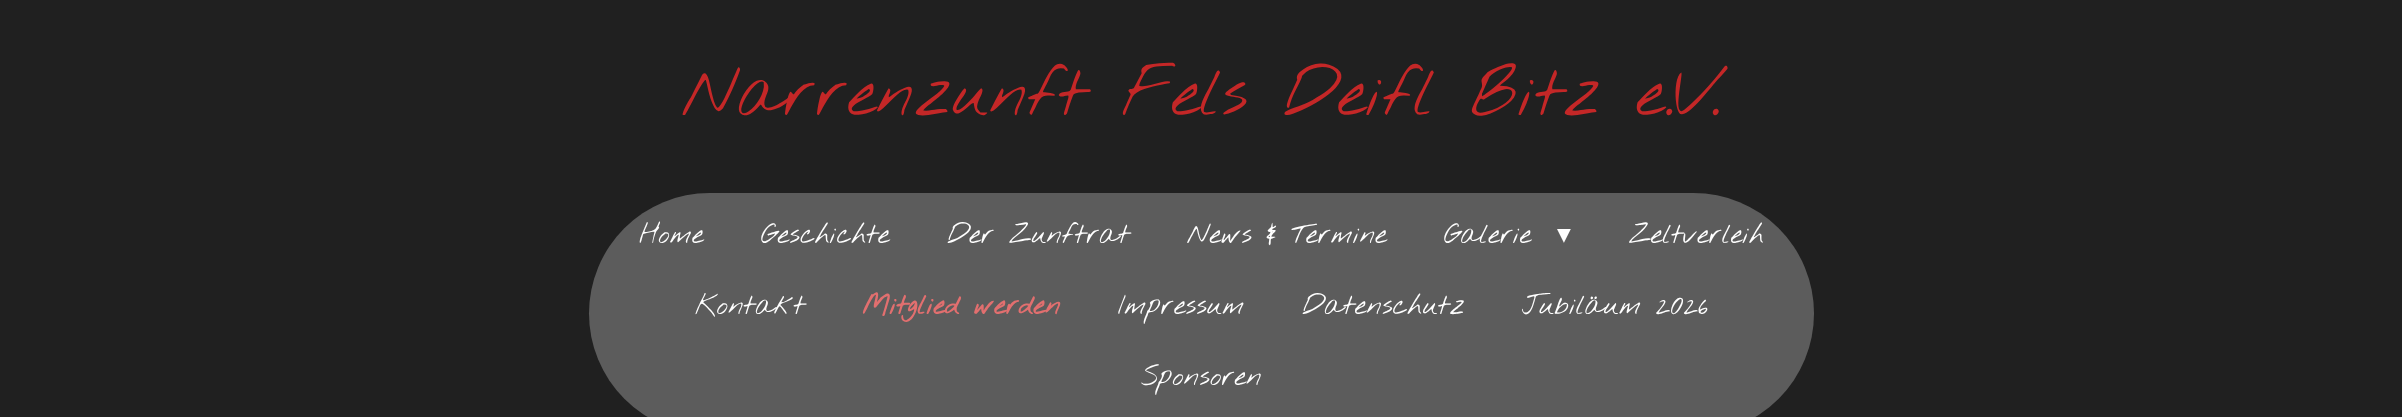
<svg xmlns="http://www.w3.org/2000/svg" width="2402" height="417">
<rect width="100%" height="100%" fill="#202020"/>
<text x="682" y="115" style="font-family:Nothing You Could Do;font-size:67.5px;font-weight:100;fill:#c42727">Narrenzunft Fels Deifl Bitz e.V.</text>
<rect x="589" y="193" width="1225" height="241" rx="120.5" fill="#5c5c5c"/>
<text x="639" y="243" style="font-family:Nothing You Could Do;font-size:27.5px;font-weight:100;fill:#fff">Home</text>
<text x="761" y="243" style="font-family:Nothing You Could Do;font-size:27.5px;font-weight:100;fill:#fff">Geschichte</text>
<text x="947" y="243" style="font-family:Nothing You Could Do;font-size:27.5px;font-weight:100;fill:#fff">Der Zunftrat</text>
<text x="1187" y="243" style="font-family:Nothing You Could Do;font-size:27.5px;font-weight:100;fill:#fff">News &amp; Termine</text>
<text x="1444" y="243" style="font-family:Nothing You Could Do;font-size:27.5px;font-weight:100;fill:#fff">Galerie</text>
<text x="1557" y="243" style="font-family:DejaVu Sans;font-size:27.5px;fill:#fff">▾</text>
<text x="1628" y="243" style="font-family:Nothing You Could Do;font-size:27.5px;font-weight:100;fill:#fff">Zeltverleih</text>
<text x="695" y="314" style="font-family:Nothing You Could Do;font-size:27.5px;font-weight:100;fill:#fff">Kontakt</text>
<text x="862" y="314" style="font-family:Nothing You Could Do;font-size:27.5px;font-weight:bold;fill:#e26f6f">Mitglied werden</text>
<text x="1118" y="314" style="font-family:Nothing You Could Do;font-size:27.5px;font-weight:100;fill:#fff">Impressum</text>
<text x="1302" y="314" style="font-family:Nothing You Could Do;font-size:27.5px;font-weight:100;fill:#fff">Datenschutz</text>
<text x="1522" y="314" style="font-family:Nothing You Could Do;font-size:27.5px;font-weight:100;fill:#fff">Jubiläum 2026</text>
<text x="1141" y="385" style="font-family:Nothing You Could Do;font-size:27.5px;font-weight:100;fill:#fff">Sponsoren</text>
</svg>
